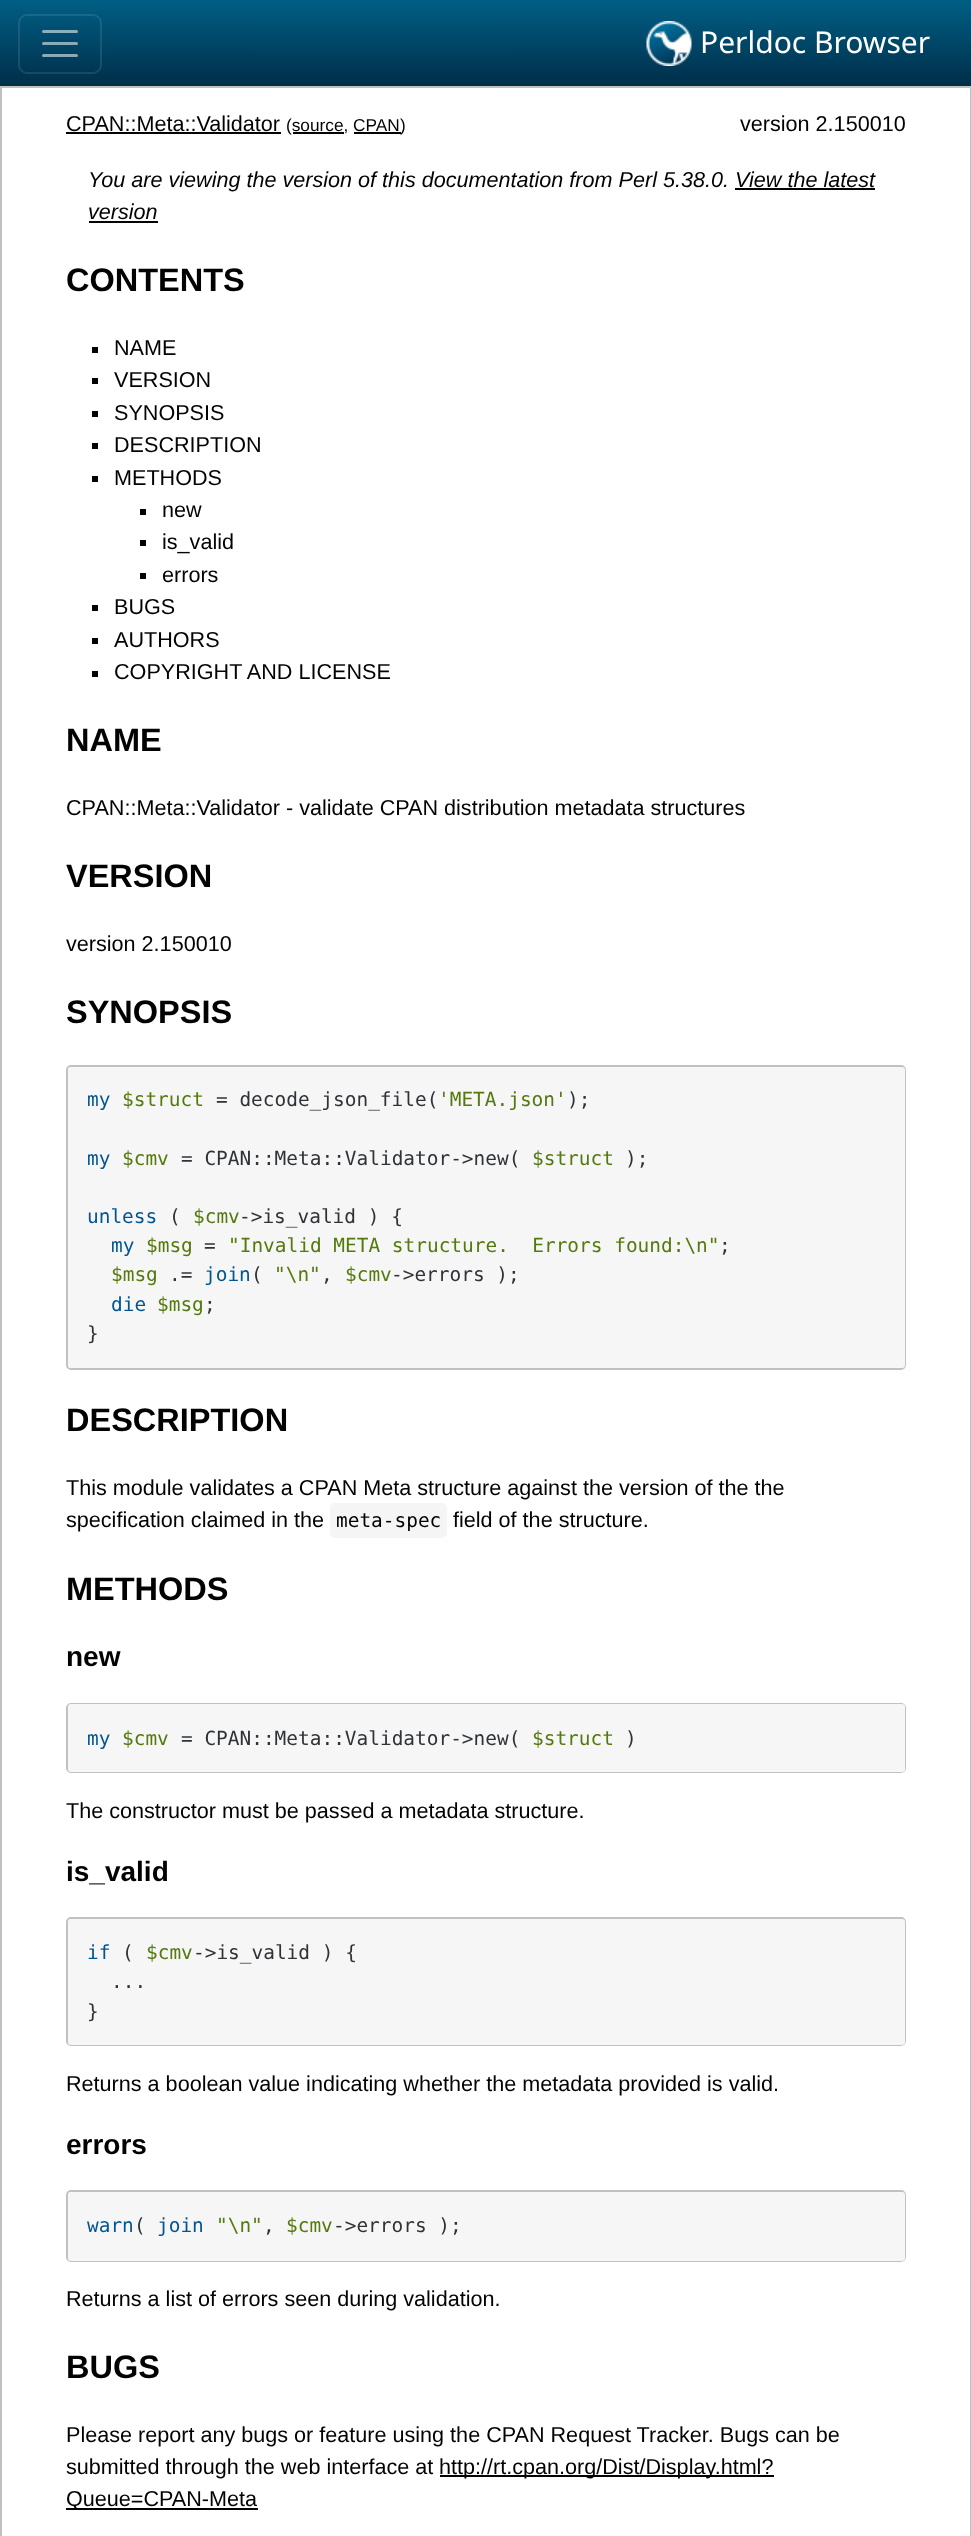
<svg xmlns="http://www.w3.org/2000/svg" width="971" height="2536">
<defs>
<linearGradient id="g1" gradientUnits="userSpaceOnUse" x1="486" y1="0" x2="486" y2="86"><stop offset="0" stop-color="#005f85"/><stop offset="1" stop-color="#002e49"/></linearGradient>
</defs>
<rect width="100%" height="100%" fill="#fff"/>
<rect width="971" height="86" fill="url(#g1)"/>
<rect x="19" y="15" width="82" height="58" rx="8" fill="none" stroke="#ffffff1a" stroke-width="2"/>
<path d="M43.5 31.5h33m-33 12h33m-33 12h33" fill="none" stroke="#ffffff8c" stroke-width="3" stroke-linecap="round"/>
<image x="646" y="21" width="46" height="45" href="media/1.png"/>
<text x="700" y="53" style="font-family:Noto Sans;font-size:30px;fill:#fff">Perldoc Browser</text>
<rect x="1" y="87" width="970" height="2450" fill="none" stroke="#c1c1c1" stroke-width="2"/>
<text x="66" y="131" style="font-family:Liberation Sans;font-size:21.6px;fill:#020202">CPAN::Meta::Validator</text>
<rect x="66" y="132" width="215" height="2" fill="#020202"/>
<text x="286" y="131" style="font-family:Liberation Sans;font-size:17.25px;fill:#020202">(source, CPAN</text>
<rect x="293" y="132" width="51" height="2" fill="#020202"/>
<rect x="354" y="132" width="47" height="2" fill="#020202"/>
<text x="400" y="131" style="font-family:Liberation Sans;font-size:17.25px;fill:#020202">)</text>
<text x="740" y="131" style="font-family:Liberation Sans;font-size:21.6px;fill:#020202">version 2.150010</text>
<text x="88" y="187" style="font-family:Liberation Sans;font-size:21.6px;font-style:italic;fill:#020202">You are viewing the version of this documentation from Perl 5.38.0.</text>
<text x="735" y="187" style="font-family:Liberation Sans;font-size:21.6px;font-style:italic;fill:#020202">View the latest</text>
<rect x="735" y="188" width="140" height="2" fill="#020202"/>
<text x="88" y="219" style="font-family:Liberation Sans;font-size:21.6px;font-style:italic;fill:#020202">version</text>
<rect x="89" y="221" width="69" height="2" fill="#020202"/>
<text x="66" y="291" style="font-family:Liberation Sans;font-size:32.5px;font-weight:bold;fill:#020202">CONTENTS</text>
<rect x="92" y="347" width="6" height="6" fill="#020202"/>
<text x="114" y="355" style="font-family:Liberation Sans;font-size:21.6px;fill:#020202">NAME</text>
<rect x="92" y="378" width="6" height="6" fill="#020202"/>
<text x="114" y="387" style="font-family:Liberation Sans;font-size:21.6px;fill:#020202">VERSION</text>
<rect x="92" y="411" width="6" height="6" fill="#020202"/>
<text x="114" y="420" style="font-family:Liberation Sans;font-size:21.6px;fill:#020202">SYNOPSIS</text>
<rect x="92" y="443" width="6" height="6" fill="#020202"/>
<text x="114" y="452" style="font-family:Liberation Sans;font-size:21.6px;fill:#020202">DESCRIPTION</text>
<rect x="92" y="476" width="6" height="6" fill="#020202"/>
<text x="114" y="485" style="font-family:Liberation Sans;font-size:21.6px;fill:#020202">METHODS</text>
<rect x="140" y="509" width="6" height="6" fill="#020202"/>
<text x="162" y="517" style="font-family:Liberation Sans;font-size:21.6px;fill:#020202">new</text>
<rect x="140" y="540" width="6" height="6" fill="#020202"/>
<text x="162" y="549" style="font-family:Liberation Sans;font-size:21.6px;fill:#020202">is_valid</text>
<rect x="140" y="573" width="6" height="6" fill="#020202"/>
<text x="162" y="582" style="font-family:Liberation Sans;font-size:21.6px;fill:#020202">errors</text>
<rect x="92" y="605" width="6" height="6" fill="#020202"/>
<text x="114" y="614" style="font-family:Liberation Sans;font-size:21.6px;fill:#020202">BUGS</text>
<rect x="92" y="638" width="6" height="6" fill="#020202"/>
<text x="114" y="647" style="font-family:Liberation Sans;font-size:21.6px;fill:#020202">AUTHORS</text>
<rect x="92" y="671" width="6" height="6" fill="#020202"/>
<text x="114" y="679" style="font-family:Liberation Sans;font-size:21.6px;fill:#020202">COPYRIGHT AND LICENSE</text>
<text x="66" y="751" style="font-family:Liberation Sans;font-size:32.5px;font-weight:bold;fill:#020202">NAME</text>
<text x="66" y="815" style="font-family:Liberation Sans;font-size:21.6px;fill:#020202">CPAN::Meta::Validator - validate CPAN distribution metadata structures</text>
<text x="66" y="887" style="font-family:Liberation Sans;font-size:32.5px;font-weight:bold;fill:#020202">VERSION</text>
<text x="66" y="951" style="font-family:Liberation Sans;font-size:21.6px;fill:#020202">version 2.150010</text>
<text x="66" y="1023" style="font-family:Liberation Sans;font-size:32.5px;font-weight:bold;fill:#020202">SYNOPSIS</text>
<rect x="67" y="1066" width="838" height="303" rx="4" fill="none" stroke="#c1c1c1" stroke-width="2"/>
<rect x="68" y="1067" width="837" height="301" rx="3" fill="#f6f6f6"/>
<text x="87" y="1106" style="font-family:DejaVu Sans Mono;font-size:19.45px;fill:#015692">my</text>
<text x="122" y="1106" style="font-family:DejaVu Sans Mono;font-size:19.45px;fill:#54790d">$struct</text>
<text x="216" y="1106" style="font-family:DejaVu Sans Mono;font-size:19.45px;fill:#2f3337">= decode_json_file(</text>
<text x="438" y="1106" style="font-family:DejaVu Sans Mono;font-size:19.45px;fill:#54790d">'META.json'</text>
<text x="567" y="1106" style="font-family:DejaVu Sans Mono;font-size:19.45px;fill:#2f3337">);</text>
<text x="87" y="1165" style="font-family:DejaVu Sans Mono;font-size:19.45px;fill:#015692">my</text>
<text x="122" y="1165" style="font-family:DejaVu Sans Mono;font-size:19.45px;fill:#54790d">$cmv</text>
<text x="181" y="1165" style="font-family:DejaVu Sans Mono;font-size:19.45px;fill:#2f3337">= CPAN::Meta::Validator-&gt;new(</text>
<text x="532" y="1165" style="font-family:DejaVu Sans Mono;font-size:19.45px;fill:#54790d">$struct</text>
<text x="625" y="1165" style="font-family:DejaVu Sans Mono;font-size:19.45px;fill:#2f3337">);</text>
<text x="87" y="1223" style="font-family:DejaVu Sans Mono;font-size:19.45px;fill:#015692">unless</text>
<text x="169" y="1223" style="font-family:DejaVu Sans Mono;font-size:19.45px;fill:#2f3337">(</text>
<text x="193" y="1223" style="font-family:DejaVu Sans Mono;font-size:19.45px;fill:#54790d">$cmv</text>
<text x="239" y="1223" style="font-family:DejaVu Sans Mono;font-size:19.45px;fill:#2f3337">-&gt;is_valid ) {</text>
<text x="111" y="1252" style="font-family:DejaVu Sans Mono;font-size:19.45px;fill:#015692">my</text>
<text x="146" y="1252" style="font-family:DejaVu Sans Mono;font-size:19.45px;fill:#54790d">$msg</text>
<text x="204" y="1252" style="font-family:DejaVu Sans Mono;font-size:19.45px;fill:#2f3337">=</text>
<text x="228" y="1252" style="font-family:DejaVu Sans Mono;font-size:19.45px;fill:#54790d" xml:space="preserve">"Invalid META structure.  Errors found:\n"</text>
<text x="719" y="1252" style="font-family:DejaVu Sans Mono;font-size:19.45px;fill:#2f3337">;</text>
<text x="111" y="1281" style="font-family:DejaVu Sans Mono;font-size:19.45px;fill:#54790d">$msg</text>
<text x="169" y="1281" style="font-family:DejaVu Sans Mono;font-size:19.45px;fill:#2f3337">.=</text>
<text x="204" y="1281" style="font-family:DejaVu Sans Mono;font-size:19.45px;fill:#015692">join</text>
<text x="251" y="1281" style="font-family:DejaVu Sans Mono;font-size:19.45px;fill:#2f3337">(</text>
<text x="274" y="1281" style="font-family:DejaVu Sans Mono;font-size:19.45px;fill:#54790d">"\n"</text>
<text x="321" y="1281" style="font-family:DejaVu Sans Mono;font-size:19.45px;fill:#2f3337">,</text>
<text x="345" y="1281" style="font-family:DejaVu Sans Mono;font-size:19.45px;fill:#54790d">$cmv</text>
<text x="391" y="1281" style="font-family:DejaVu Sans Mono;font-size:19.45px;fill:#2f3337">-&gt;errors );</text>
<text x="111" y="1311" style="font-family:DejaVu Sans Mono;font-size:19.45px;fill:#015692">die</text>
<text x="157" y="1311" style="font-family:DejaVu Sans Mono;font-size:19.45px;fill:#54790d">$msg</text>
<text x="204" y="1311" style="font-family:DejaVu Sans Mono;font-size:19.45px;fill:#2f3337">;</text>
<text x="87" y="1340" style="font-family:DejaVu Sans Mono;font-size:19.45px;fill:#2f3337">}</text>
<text x="66" y="1431" style="font-family:Liberation Sans;font-size:32.5px;font-weight:bold;fill:#020202">DESCRIPTION</text>
<text x="66" y="1495" style="font-family:Liberation Sans;font-size:21.6px;fill:#020202">This module validates a CPAN Meta structure against the version of the the</text>
<text x="66" y="1527" style="font-family:Liberation Sans;font-size:21.6px;fill:#020202">specification claimed in the</text>
<rect x="330" y="1503" width="117" height="35" rx="5" fill="#f5f5f5"/>
<text x="336" y="1527" style="font-family:DejaVu Sans Mono;font-size:19.45px;fill:#020202">meta-spec</text>
<text x="453" y="1527" style="font-family:Liberation Sans;font-size:21.6px;fill:#020202">field of the structure.</text>
<text x="66" y="1600" style="font-family:Liberation Sans;font-size:32.5px;font-weight:bold;fill:#020202">METHODS</text>
<text x="66" y="1666" style="font-family:Liberation Sans;font-size:28px;font-weight:bold;fill:#020202">new</text>
<rect x="67" y="1704" width="838" height="68" rx="4" fill="none" stroke="#c1c1c1" stroke-width="2"/>
<rect x="68" y="1704" width="837" height="68" rx="3" fill="#f6f6f6"/>
<text x="87" y="1745" style="font-family:DejaVu Sans Mono;font-size:19.45px;fill:#015692">my</text>
<text x="122" y="1745" style="font-family:DejaVu Sans Mono;font-size:19.45px;fill:#54790d">$cmv</text>
<text x="181" y="1745" style="font-family:DejaVu Sans Mono;font-size:19.45px;fill:#2f3337">= CPAN::Meta::Validator-&gt;new(</text>
<text x="532" y="1745" style="font-family:DejaVu Sans Mono;font-size:19.45px;fill:#54790d">$struct</text>
<text x="625" y="1745" style="font-family:DejaVu Sans Mono;font-size:19.45px;fill:#2f3337">)</text>
<text x="66" y="1818" style="font-family:Liberation Sans;font-size:21.6px;fill:#020202">The constructor must be passed a metadata structure.</text>
<text x="66" y="1881" style="font-family:Liberation Sans;font-size:28px;font-weight:bold;fill:#020202">is_valid</text>
<rect x="67" y="1918" width="838" height="127" rx="4" fill="none" stroke="#c1c1c1" stroke-width="2"/>
<rect x="68" y="1919" width="837" height="126" rx="3" fill="#f6f6f6"/>
<text x="87" y="1959" style="font-family:DejaVu Sans Mono;font-size:19.45px;fill:#015692">if</text>
<text x="122" y="1959" style="font-family:DejaVu Sans Mono;font-size:19.45px;fill:#2f3337">(</text>
<text x="146" y="1959" style="font-family:DejaVu Sans Mono;font-size:19.45px;fill:#54790d">$cmv</text>
<text x="193" y="1959" style="font-family:DejaVu Sans Mono;font-size:19.45px;fill:#2f3337">-&gt;is_valid ) {</text>
<text x="111" y="1988" style="font-family:DejaVu Sans Mono;font-size:19.45px;fill:#2f3337">...</text>
<text x="87" y="2018" style="font-family:DejaVu Sans Mono;font-size:19.45px;fill:#2f3337">}</text>
<text x="66" y="2091" style="font-family:Liberation Sans;font-size:21.6px;fill:#020202">Returns a boolean value indicating whether the metadata provided is valid.</text>
<text x="66" y="2154" style="font-family:Liberation Sans;font-size:28px;font-weight:bold;fill:#020202">errors</text>
<rect x="67" y="2191" width="838" height="70" rx="4" fill="none" stroke="#c1c1c1" stroke-width="2"/>
<rect x="68" y="2192" width="837" height="69" rx="3" fill="#f6f6f6"/>
<text x="87" y="2232" style="font-family:DejaVu Sans Mono;font-size:19.45px;fill:#015692">warn</text>
<text x="134" y="2232" style="font-family:DejaVu Sans Mono;font-size:19.45px;fill:#2f3337">(</text>
<text x="157" y="2232" style="font-family:DejaVu Sans Mono;font-size:19.45px;fill:#015692">join</text>
<text x="216" y="2232" style="font-family:DejaVu Sans Mono;font-size:19.45px;fill:#54790d">"\n"</text>
<text x="263" y="2232" style="font-family:DejaVu Sans Mono;font-size:19.45px;fill:#2f3337">,</text>
<text x="286" y="2232" style="font-family:DejaVu Sans Mono;font-size:19.45px;fill:#54790d">$cmv</text>
<text x="333" y="2232" style="font-family:DejaVu Sans Mono;font-size:19.45px;fill:#2f3337">-&gt;errors );</text>
<text x="66" y="2306" style="font-family:Liberation Sans;font-size:21.6px;fill:#020202">Returns a list of errors seen during validation.</text>
<text x="66" y="2378" style="font-family:Liberation Sans;font-size:32.5px;font-weight:bold;fill:#020202">BUGS</text>
<text x="66" y="2442" style="font-family:Liberation Sans;font-size:21.6px;fill:#020202">Please report any bugs or feature using the CPAN Request Tracker. Bugs can be</text>
<text x="66" y="2474" style="font-family:Liberation Sans;font-size:21.6px;fill:#020202">submitted through the web interface at</text>
<rect x="440" y="2475" width="334" height="2" fill="#020202"/>
<text x="439" y="2474" style="font-family:Liberation Sans;font-size:21.6px;fill:#020202">http://rt.cpan.org/Dist/Display.html?</text>
<rect x="66" y="2508" width="192" height="2" fill="#020202"/>
<text x="66" y="2506" style="font-family:Liberation Sans;font-size:21.6px;fill:#020202">Queue=CPAN-Meta</text>
</svg>
